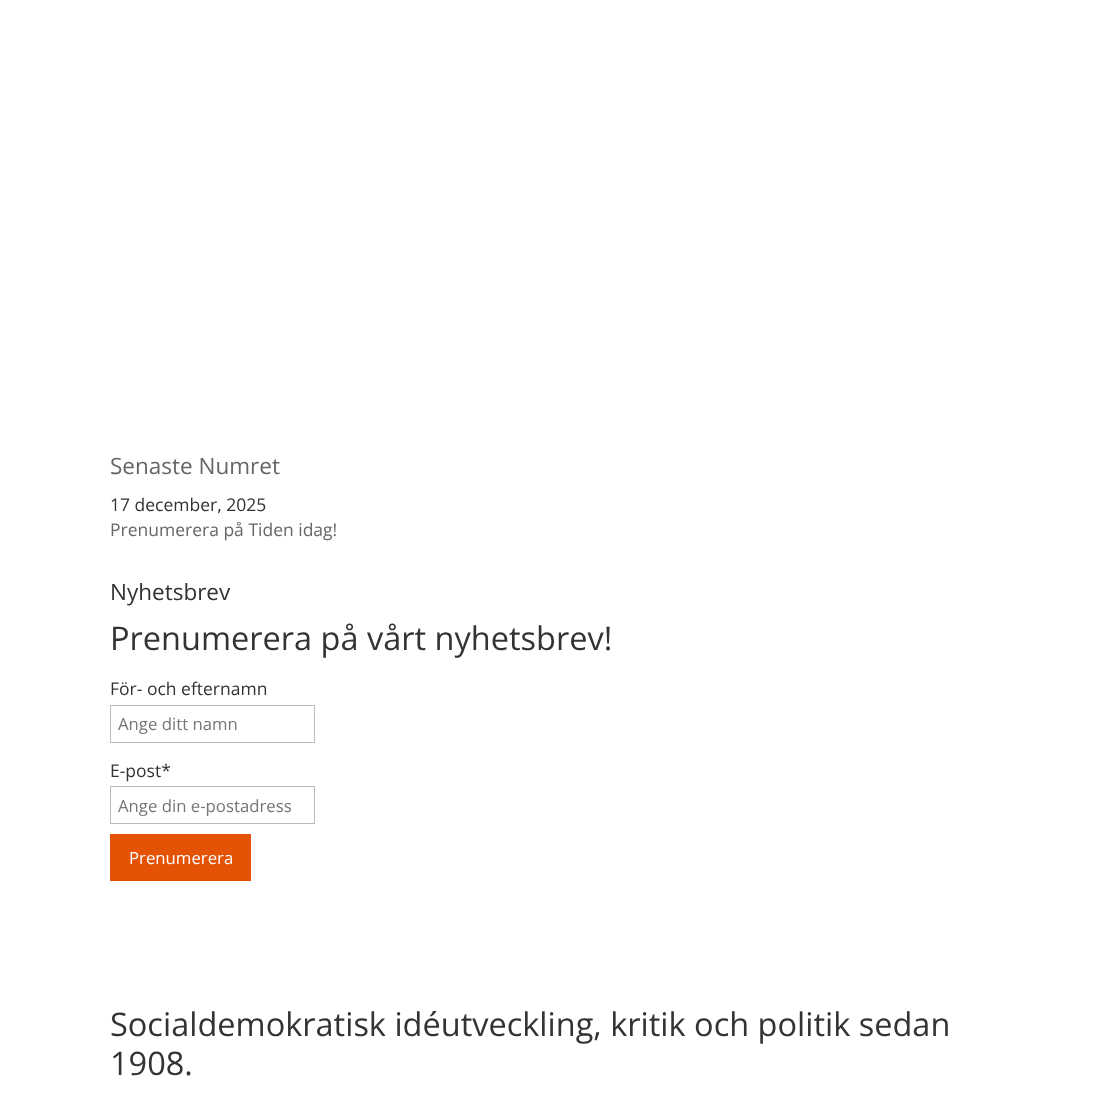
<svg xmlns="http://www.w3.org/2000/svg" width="1101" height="1110">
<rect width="100%" height="100%" fill="#fff"/>
<text x="110" y="474" style="font-family:Open Sans;font-size:22.5px;fill:#666">Senaste Numret</text>
<text x="110" y="511" style="font-family:Open Sans;font-size:17.5px;fill:#333">17 december, 2025</text>
<text x="110" y="536" style="font-family:Open Sans;font-size:17.5px;fill:#666">Prenumerera på Tiden idag!</text>
<text x="110" y="600" style="font-family:Open Sans;font-size:22.5px;fill:#333">Nyhetsbrev</text>
<text x="110" y="650" style="font-family:Open Sans;font-size:32.5px;fill:#333">Prenumerera på vårt nyhetsbrev!</text>
<text x="110" y="695" style="font-family:Open Sans;font-size:17.5px;fill:#333">För- och efternamn</text>
<rect x="110.5" y="705.5" width="204" height="37" fill="none" stroke="#bbb"/>
<text x="118" y="730" style="font-family:Open Sans;font-size:16.75px;fill:#757575">Ange ditt namn</text>
<text x="110" y="777" style="font-family:Open Sans;font-size:17.5px;fill:#333">E-post*</text>
<rect x="110.5" y="786.5" width="204" height="37" fill="none" stroke="#bbb"/>
<text x="118" y="812" style="font-family:Open Sans;font-size:16.75px;fill:#757575">Ange din e-postadress</text>
<rect x="110" y="834" width="141" height="47" fill="#e35205"/>
<text x="129" y="864" style="font-family:Open Sans;font-size:16.75px;fill:#fff">Prenumerera</text>
<text x="110" y="1036" style="font-family:Open Sans;font-size:32.5px;fill:#333">Socialdemokratisk idéutveckling, kritik och politik sedan</text>
<text x="110" y="1075" style="font-family:Open Sans;font-size:32.5px;fill:#333">1908.</text>
</svg>
